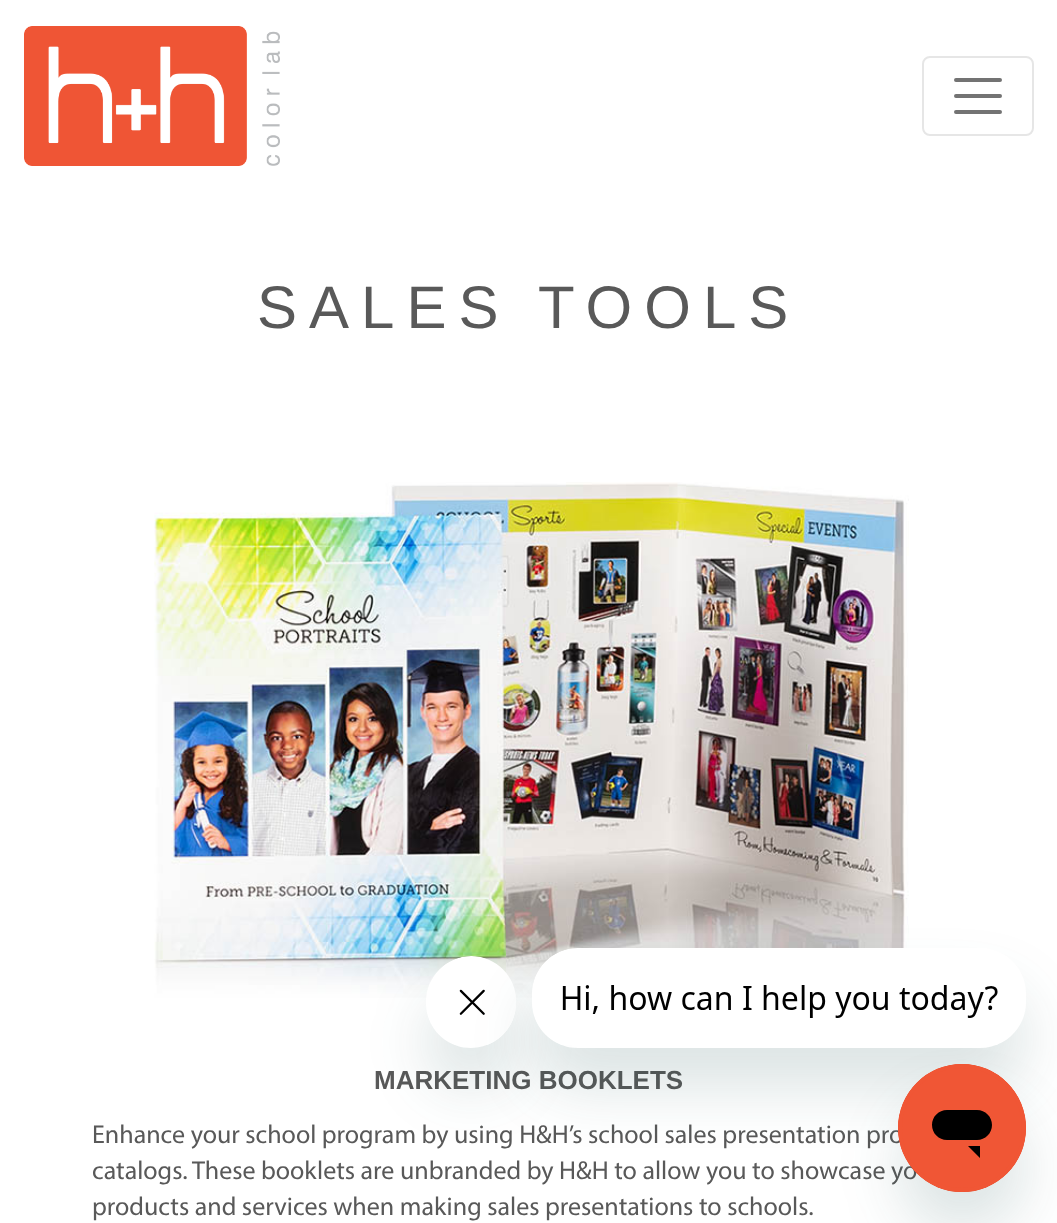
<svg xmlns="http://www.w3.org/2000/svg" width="1057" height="1223">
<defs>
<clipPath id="clip1"><path d="M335 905h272v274h-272zm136 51c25 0 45 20 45 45v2c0 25-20 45-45 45c-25 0-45-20-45-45v-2c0-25 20-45 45-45z" clip-rule="evenodd"/></clipPath>
<clipPath id="clip2"><path d="M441 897h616v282h-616zm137 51h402c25.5 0 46 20.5 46 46v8c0 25.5-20.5 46-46 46h-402c-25.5 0-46-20.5-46-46v-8c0-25.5 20.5-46 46-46z" clip-rule="evenodd"/></clipPath>
</defs>
<rect width="100%" height="100%" fill="#fff"/>
<image x="24" y="26" width="256" height="140" href="media/1.png"/>
<rect x="923" y="57" width="110" height="78" rx="7" fill="none" stroke="#e6e6e6" stroke-width="2"/>
<path d="M956 80h44m-44 16h44m-44 16h44" fill="none" stroke="#737373" stroke-width="4" stroke-linecap="round"/>
<text x="257" y="328" style="font-family:Liberation Sans;font-size:60px;letter-spacing:12px;fill:#595959">SALES TOOLS</text>
<image x="154" y="482" width="755" height="516" href="media/2.png"/>
<text x="374" y="1089" style="font-family:Liberation Sans;font-size:26px;font-weight:bold;fill:#595959">MARKETING BOOKLETS</text>
<text x="92" y="1143" style="font-family:Myriad;font-size:26px;fill:#595959">Enhance your school program by using H&amp;H’s school sales presentation pro</text>
<text x="92" y="1179" style="font-family:Myriad;font-size:26px;fill:#595959">catalogs. These booklets are unbranded by H&amp;H to allow you to showcase yo</text>
<text x="92" y="1215" style="font-family:Myriad;font-size:26px;fill:#595959">products and services when making sales presentations to schools.</text>
<g clip-path="url(#clip1)">
<rect x="426" y="996" width="90" height="92" rx="45" fill="#17494d26" filter="blur(30px)"/>
</g>
<image x="427" y="956" width="89" height="89" href="media/4.png"/>
<g clip-path="url(#clip2)">
<rect x="532" y="988" width="494" height="100" rx="46" fill="#17494d26" filter="blur(30px)"/>
</g>
<image x="532" y="948" width="466" height="97" href="media/3.png"/>
<rect x="898" y="1104" width="128" height="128" rx="64" fill="#17494d26" filter="blur(30px)"/>
<image x="898" y="1064" width="128" height="128" href="media/5.png"/>
</svg>
